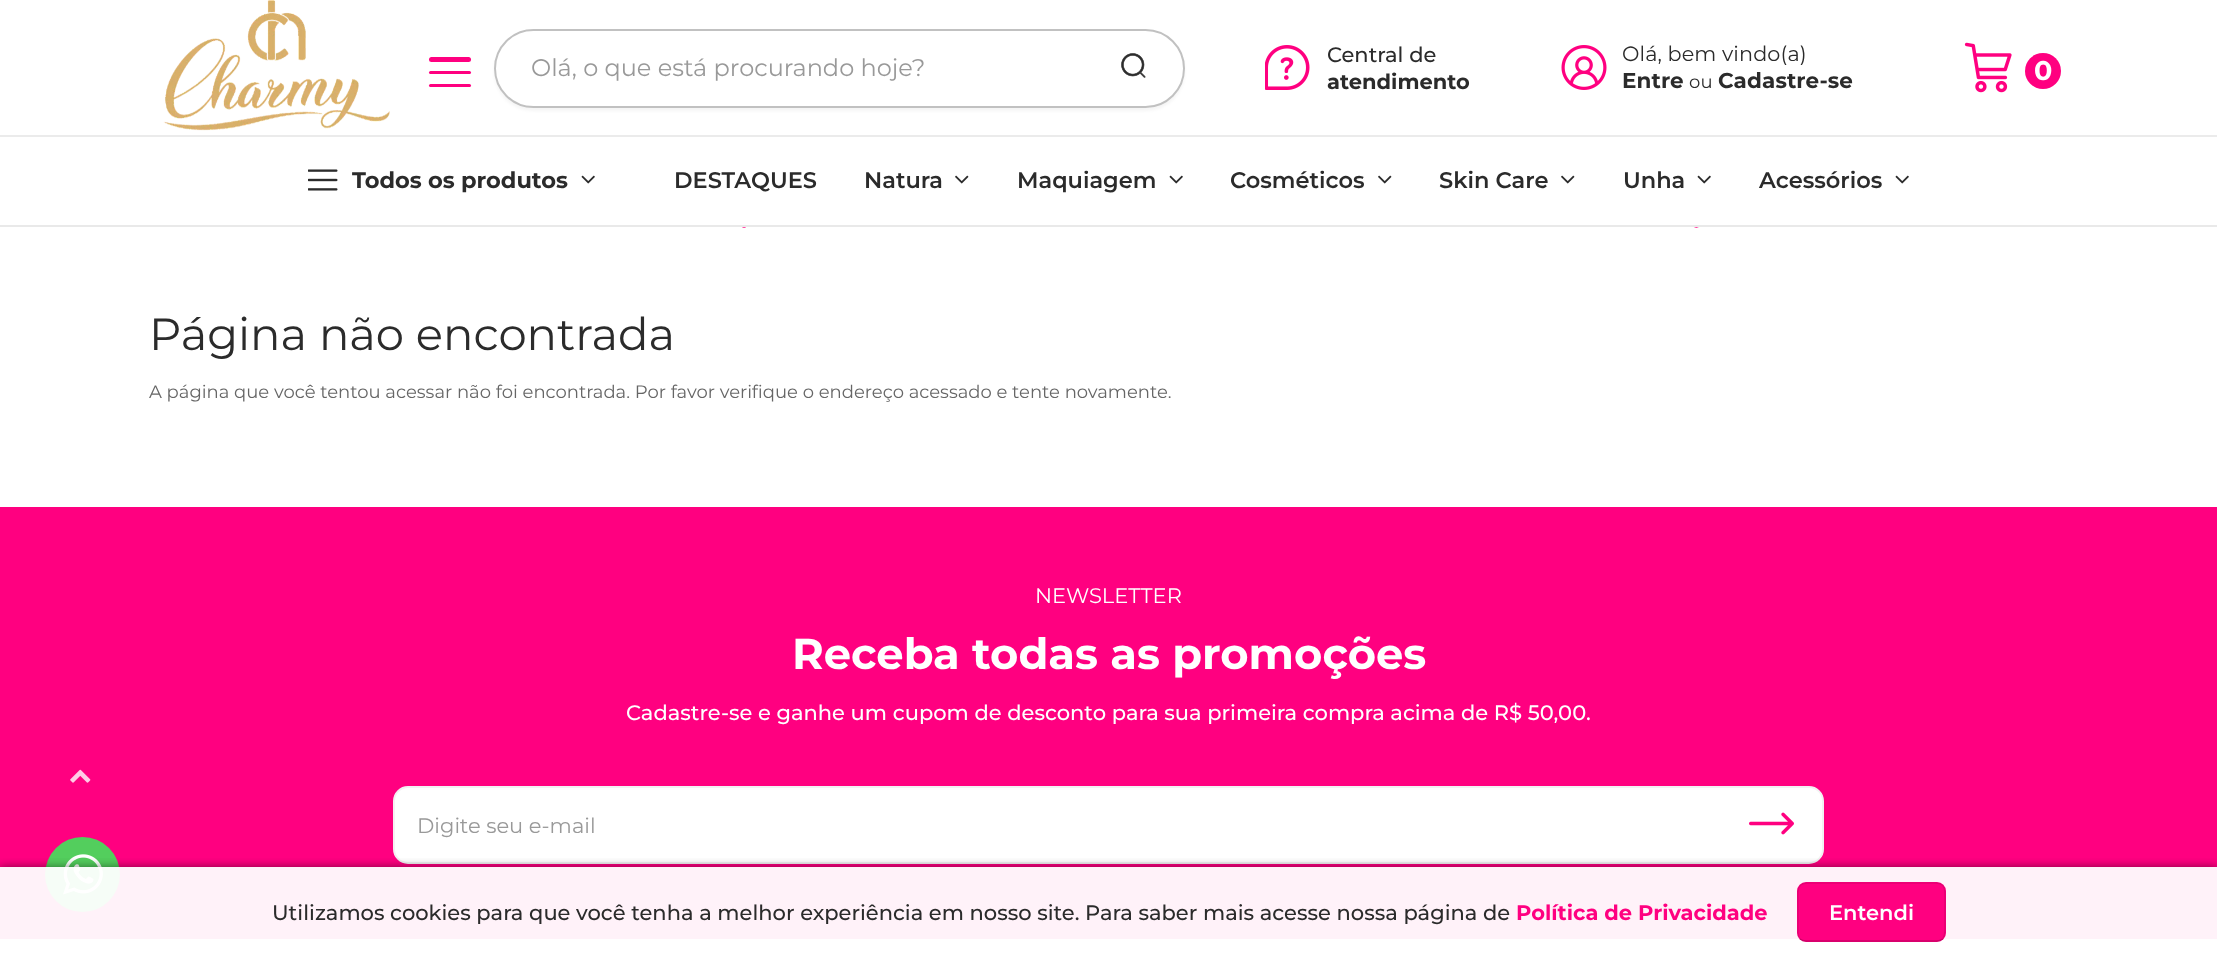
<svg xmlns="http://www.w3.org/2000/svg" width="2217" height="957">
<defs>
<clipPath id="clip1"><rect x="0" y="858" width="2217" height="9"/></clipPath>
</defs>
<rect width="100%" height="100%" fill="#fff"/>
<rect y="507" width="2217" height="432" fill="#ff0080"/>
<image x="70" y="769" width="21" height="14" href="media/1.png"/>
<image x="163" y="0" width="227" height="131" href="media/2.png"/>
<rect x="429" y="57" width="42" height="5" rx="2.5" fill="#ff0080"/>
<rect x="429" y="71" width="42" height="3" rx="1.5" fill="#ff0080"/>
<rect x="429" y="84" width="42" height="3" rx="1.5" fill="#ff0080"/>
<rect x="494" y="32" width="691" height="79" rx="39.5" fill="#0000000a" filter="blur(1.5px)"/>
<rect x="495" y="30" width="689" height="77" rx="38.5" fill="#fff" stroke="#c1c1c1" stroke-width="2"/>
<text x="531" y="76" style="font-family:Montserrat;font-size:24px;fill:#999">Olá, o que está procurando hoje?</text>
<image x="1121" y="53" width="25" height="25" href="media/3.png"/>
<image x="1265" y="45" width="45" height="45" href="media/4.png"/>
<text x="1327" y="62" style="font-family:Montserrat;font-size:21px;font-weight:500;fill:#2b2b2b">Central de</text>
<text x="1327" y="89" style="font-family:Montserrat;font-size:21px;font-weight:bold;fill:#2b2b2b">atendimento</text>
<image x="1561" y="45" width="46" height="45" href="media/5.png"/>
<text x="1622" y="61" style="font-family:Montserrat;font-size:20.75px;letter-spacing:0.1px;fill:#2b2b2b">Olá, bem vindo(a)</text>
<text x="1622" y="88" style="font-family:Montserrat;font-size:21.5px;font-weight:bold;letter-spacing:0.1px;fill:#2b2b2b">Entre</text>
<text x="1689" y="88" style="font-family:Montserrat;font-size:18px;letter-spacing:0.1px;fill:#2b2b2b">ou</text>
<text x="1718" y="88" style="font-family:Montserrat;font-size:21.5px;font-weight:bold;letter-spacing:0.1px;fill:#2b2b2b">Cadastre-se</text>
<image x="1964" y="42" width="48" height="51" href="media/6.png"/>
<circle cx="2043" cy="71" r="18" fill="#ff0080"/>
<text x="2034" y="80" style="font-family:Montserrat;font-size:27px;font-weight:bold;fill:#fff">0</text>
<rect y="135" width="2217" height="2" fill="#ebebeb"/>
<rect y="225" width="2217" height="2" fill="#e9e9e9"/>
<image x="308" y="169" width="30" height="22" href="media/7.png"/>
<text x="352" y="188" style="font-family:Montserrat;font-size:22.5px;font-weight:bold;fill:#2b2b2b">Todos os produtos</text>
<image x="581" y="175" width="14" height="9" href="media/8.png"/>
<text x="674" y="188" style="font-family:Montserrat;font-size:22.5px;font-weight:600;fill:#2b2b2b">DESTAQUES</text>
<text x="864" y="188" style="font-family:Montserrat;font-size:22.5px;font-weight:600;fill:#2b2b2b">Natura</text>
<image x="955" y="175" width="14" height="9" href="media/9.png"/>
<text x="1017" y="188" style="font-family:Montserrat;font-size:22.5px;font-weight:600;fill:#2b2b2b">Maquiagem</text>
<image x="1169" y="175" width="14" height="9" href="media/8.png"/>
<text x="1230" y="188" style="font-family:Montserrat;font-size:22.5px;font-weight:600;fill:#2b2b2b">Cosméticos</text>
<image x="1378" y="175" width="14" height="9" href="media/9.png"/>
<text x="1439" y="188" style="font-family:Montserrat;font-size:22.5px;font-weight:600;fill:#2b2b2b">Skin Care</text>
<image x="1561" y="175" width="14" height="9" href="media/9.png"/>
<text x="1623" y="188" style="font-family:Montserrat;font-size:22.5px;font-weight:600;fill:#2b2b2b">Unha</text>
<image x="1697" y="175" width="14" height="9" href="media/8.png"/>
<text x="1759" y="188" style="font-family:Montserrat;font-size:22.5px;font-weight:600;fill:#2b2b2b">Acessórios</text>
<image x="1895" y="175" width="14" height="9" href="media/8.png"/>
<image x="742" y="227" width="4" height="1" href="media/10.png"/>
<image x="1694" y="227" width="5" height="1" href="media/11.png"/>
<text x="149" y="350" style="font-family:Montserrat;font-size:45px;fill:#2b2b2b">Página não encontrada</text>
<text x="149" y="398" style="font-family:Montserrat;font-size:18px;fill:#666">A página que você tentou acessar não foi encontrada. Por favor verifique o endereço acessado e tente novamente.</text>
<text x="1035" y="603" style="font-family:Montserrat;font-size:21px;fill:#fff">NEWSLETTER</text>
<text x="792" y="669" style="font-family:Montserrat;font-size:43.25px;font-weight:bold;fill:#fff">Receba todas as promoções</text>
<text x="626" y="720" style="font-family:Montserrat;font-size:21px;font-weight:500;fill:#fff">Cadastre-se e ganhe um cupom de desconto para sua primeira compra acima de R$ 50,00.</text>
<rect x="394" y="787" width="1429" height="76" rx="14" fill="#fff" stroke="#f2f2f2" stroke-width="2"/>
<text x="417" y="833" style="font-family:Montserrat;font-size:21px;fill:#999">Digite seu e-mail</text>
<image x="1749" y="812" width="45" height="23" href="media/12.png"/>
<circle cx="82.5" cy="874.5" r="37.5" fill="#53ce5d"/>
<image x="63" y="854" width="40" height="41" href="media/13.png"/>
<g clip-path="url(#clip1)">
<rect y="867" width="2217" height="90" fill="#00000080" filter="blur(5px)"/>
</g>
<rect y="867" width="2217" height="72" fill="#fffffff2"/>
<text x="272" y="920" style="font-family:Montserrat;font-size:21px;font-weight:500;fill:#2b2b2b">Utilizamos cookies para que você tenha a melhor experiência em nosso site. Para saber mais acesse nossa página de</text>
<text x="1516" y="920" style="font-family:Montserrat;font-size:21px;font-weight:bold;fill:#ff0080">Política de Privacidade</text>
<rect x="1797" y="882" width="149" height="60" rx="9" fill="#ff0080"/>
<path d="M1942.5 939c-1.5 1.5-4 2-6 2h-130.5c-2 0-4.5-.5-6-2" fill="none" stroke="#00000033" stroke-width="1.5"/>
<path d="M1800 939c-3-3.5-2-8.5-2-13v-14c0-32.5-4-29 30-29h87c33.5 0 30-3.5 30 29v14c0 4.5 .5 9.5-2.5 13" fill="none" stroke="#0000001a" stroke-width="1.5"/>
<text x="1829" y="920" style="font-family:Montserrat;font-size:21px;font-weight:600;fill:#fff">Entendi</text>
</svg>
